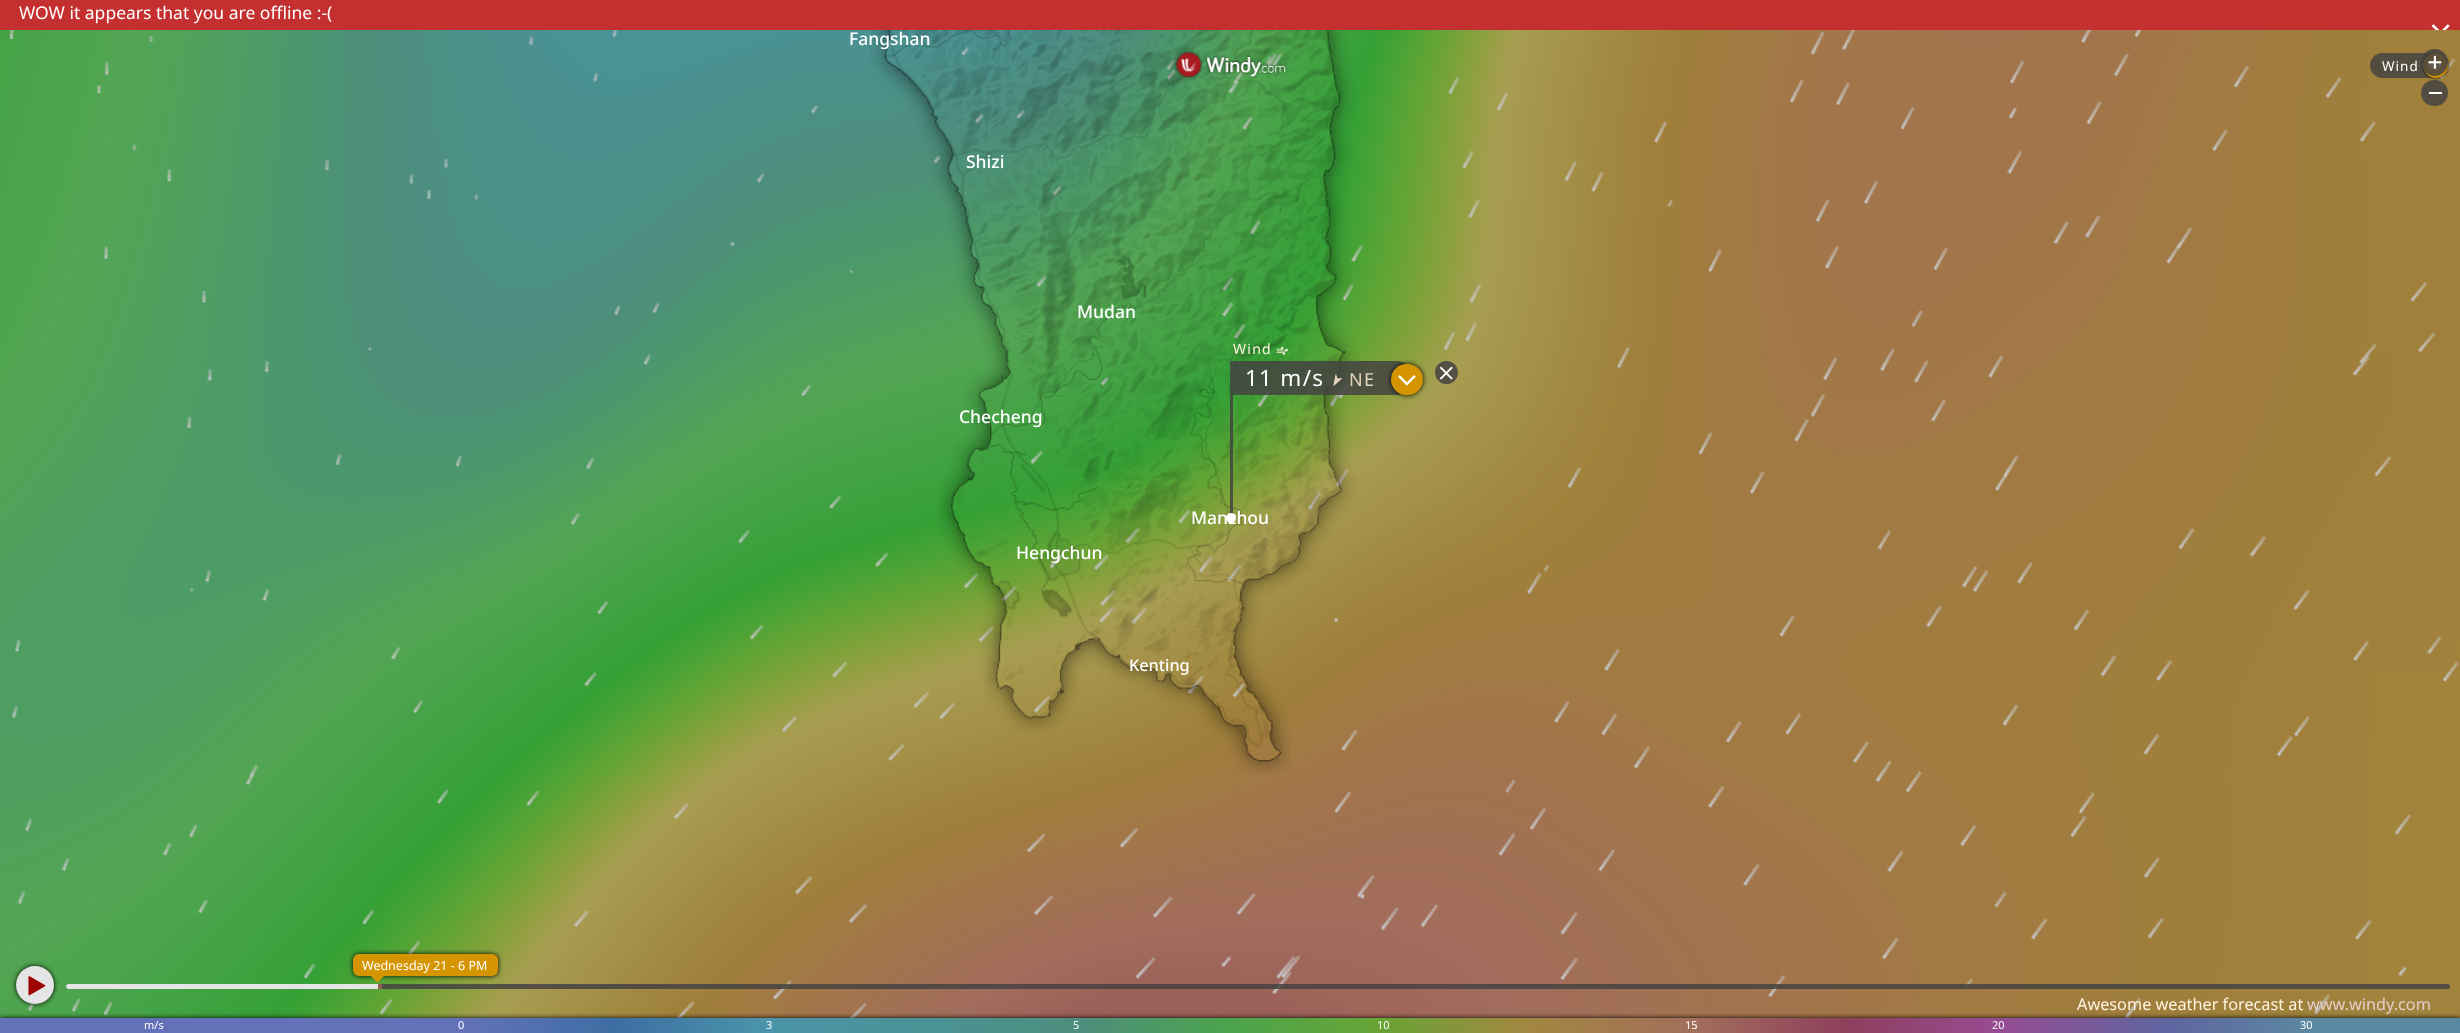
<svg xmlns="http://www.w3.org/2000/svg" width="2460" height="1033">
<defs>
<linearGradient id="g1" gradientUnits="userSpaceOnUse" x1="0" y1="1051" x2="2460" y2="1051"><stop offset="0" stop-color="#6271b8"/><stop offset="0.19" stop-color="#6271b8"/><stop offset="0.25" stop-color="#3d6ea3"/><stop offset="0.31" stop-color="#4a94aa"/><stop offset="0.38" stop-color="#4a9294"/><stop offset="0.44" stop-color="#4d8e7c"/><stop offset="0.5" stop-color="#4ca44c"/><stop offset="0.56" stop-color="#67a436"/><stop offset="0.62" stop-color="#a28740"/><stop offset="0.69" stop-color="#a26d5c"/><stop offset="0.75" stop-color="#8d3f5c"/><stop offset="0.81" stop-color="#974b91"/><stop offset="0.88" stop-color="#5f64a0"/><stop offset="0.94" stop-color="#5b88a1"/><stop offset="1" stop-color="#5b88a1"/></linearGradient>
</defs>
<rect width="100%" height="100%" fill="#fff"/>
<rect width="2460" height="30" fill="#c42f2f"/>
<text x="19" y="19" style="font-family:Noto Sans;font-size:17.5px;fill:#fff">WOW it appears that you are offline :-(</text>
<image x="2431" y="24" width="19" height="6" href="media/1.png"/>
<image x="0" y="30" width="130" height="320" href="media/2.png"/>
<image x="130" y="30" width="320" height="320" href="media/3.png"/>
<image x="450" y="30" width="320" height="320" href="media/4.png"/>
<image x="770" y="30" width="320" height="320" href="media/5.png"/>
<image x="1090" y="30" width="320" height="320" href="media/6.png"/>
<image x="1410" y="30" width="320" height="320" href="media/7.png"/>
<image x="1730" y="30" width="320" height="320" href="media/8.png"/>
<image x="2050" y="30" width="320" height="320" href="media/9.png"/>
<rect x="2370" y="30" width="90" height="320" fill="#a0803b"/>
<image x="0" y="350" width="130" height="320" href="media/10.png"/>
<image x="130" y="350" width="320" height="320" href="media/11.png"/>
<image x="450" y="350" width="320" height="320" href="media/12.png"/>
<image x="770" y="350" width="320" height="320" href="media/13.png"/>
<image x="1090" y="350" width="320" height="320" href="media/14.png"/>
<image x="1410" y="350" width="320" height="320" href="media/15.png"/>
<image x="1730" y="350" width="320" height="320" href="media/16.png"/>
<image x="2050" y="350" width="320" height="320" href="media/17.png"/>
<image x="2370" y="350" width="90" height="320" href="media/18.png"/>
<image x="0" y="670" width="130" height="320" href="media/19.png"/>
<image x="130" y="670" width="320" height="320" href="media/20.png"/>
<image x="450" y="670" width="320" height="320" href="media/21.png"/>
<image x="770" y="670" width="320" height="320" href="media/22.png"/>
<image x="1090" y="670" width="320" height="320" href="media/23.png"/>
<image x="1410" y="670" width="320" height="320" href="media/24.png"/>
<image x="1730" y="670" width="320" height="320" href="media/25.png"/>
<image x="2050" y="670" width="320" height="320" href="media/26.png"/>
<rect x="2370" y="670" width="90" height="320" fill="#a1833c"/>
<image x="0" y="990" width="130" height="28" href="media/27.png"/>
<image x="130" y="990" width="320" height="28" href="media/28.png"/>
<image x="450" y="990" width="320" height="28" href="media/29.png"/>
<image x="770" y="990" width="320" height="28" href="media/30.png"/>
<image x="1090" y="990" width="320" height="28" href="media/31.png"/>
<image x="1410" y="990" width="320" height="28" href="media/32.png"/>
<image x="1730" y="990" width="320" height="28" href="media/33.png"/>
<image x="2050" y="990" width="320" height="28" href="media/34.png"/>
<rect x="2370" y="990" width="90" height="28" fill="#a1833d"/>
<image x="9" y="30" width="2450" height="988" href="media/35.png"/>
<image x="869" y="30" width="221" height="320" href="media/36.png"/>
<image x="1090" y="30" width="270" height="320" href="media/37.png"/>
<image x="938" y="350" width="152" height="320" href="media/38.png"/>
<image x="1090" y="350" width="271" height="320" href="media/39.png"/>
<image x="983" y="670" width="95" height="63" href="media/40.png"/>
<image x="1110" y="670" width="181" height="104" href="media/41.png"/>
<text x="849" y="45" style="font-family:Noto Sans;font-size:17.5px;font-weight:500;fill:#fff">Fangshan</text>
<text x="966" y="168" style="font-family:Noto Sans;font-size:17.5px;font-weight:500;fill:#fff">Shizi</text>
<text x="1077" y="318" style="font-family:Noto Sans;font-size:17.5px;font-weight:500;fill:#fff">Mudan</text>
<text x="959" y="423" style="font-family:Noto Sans;font-size:17.5px;font-weight:500;fill:#fff">Checheng</text>
<text x="1016" y="559" style="font-family:Noto Sans;font-size:17.5px;font-weight:500;fill:#fff">Hengchun</text>
<text x="1191" y="524" style="font-family:Noto Sans;font-size:17.5px;font-weight:500;fill:#fff">Manzhou</text>
<text x="1129" y="671" style="font-family:Noto Sans;font-size:16.25px;font-weight:500;fill:#fff">Kenting</text>
<rect x="1230" y="361" width="3" height="157" fill="#444141d6"/>
<circle cx="1231" cy="518" r="5" fill="#fff"/>
<path d="M1233 361h163c9.5 0 17 7.5 17 17c0 9.5-7.5 17-17 17h-163z" fill="#444141d6"/>
<text x="1233" y="354" style="font-family:Noto Sans;font-size:14px;letter-spacing:1.25px;fill:#fff3e1">Wind</text>
<image x="1276" y="347" width="12" height="8" href="media/42.png"/>
<text x="1245" y="386" style="font-family:Noto Sans;font-size:22.5px;letter-spacing:1.25px;fill:#fff">11 m/s</text>
<image x="1333" y="374" width="10" height="12" href="media/43.png"/>
<text x="1349" y="386" style="font-family:Noto Sans;font-size:18px;letter-spacing:1.25px;fill:#e4d5bd">NE</text>
<rect x="1391" y="364" width="32" height="31" rx="15.5" fill="#000" filter="blur(2.5px)"/>
<rect x="1391" y="364" width="32" height="31" rx="15.5" fill="#d49500"/>
<image x="1398" y="375" width="18" height="11" href="media/44.png"/>
<circle cx="1446.5" cy="372.5" r="11.5" fill="#444141d6"/>
<image x="1439" y="366" width="14" height="14" href="media/45.png"/>
<rect x="2370" y="53" width="78" height="25" rx="12.5" fill="#444141d6"/>
<rect x="2423" y="53" width="25" height="25" rx="12.5" fill="#000" filter="blur(1.5px)"/>
<circle cx="2435.5" cy="65.5" r="12.5" fill="#d49500"/>
<image x="2427" y="61" width="15" height="10" href="media/49.png"/>
<circle cx="2434.5" cy="62.5" r="13.5" fill="#444141d6"/>
<image x="2428" y="55" width="14" height="14" href="media/46.png"/>
<rect x="2421" y="80" width="27" height="26" rx="13" fill="#444141d6"/>
<rect x="2429" y="92" width="13" height="2" fill="#fff"/>
<image x="1174" y="50" width="29" height="29" href="media/47.png"/>
<image x="1205" y="55" width="83" height="24" href="media/48.png"/>
<text x="2382" y="71" style="font-family:Noto Sans;font-size:13.5px;letter-spacing:1px;fill:#fff">Wind</text>
<rect x="16" y="966" width="38" height="38" rx="19" fill="#000" filter="blur(2.5px)"/>
<circle cx="35" cy="985" r="19" fill="#e5e5e5"/>
<image x="28" y="976" width="18" height="20" href="media/50.png"/>
<rect x="353" y="954" width="145" height="22" rx="6" fill="#000" filter="blur(2.5px)"/>
<rect x="353" y="954" width="145" height="22" rx="6" fill="#d49500"/>
<text x="362" y="970" style="font-family:Noto Sans;font-size:12.5px;fill:#fff">Wednesday 21 - 6 PM</text>
<path d="M371 976h13l-6.5 6.5z" fill="#d49500"/>
<rect x="66" y="984" width="2384" height="5" rx="2.5" fill="#444141d6"/>
<path d="M68.5 984h309.5v5h-309.5c-1.5 0-2.5-1-2.5-2.5c0-1.5 1-2.5 2.5-2.5z" fill="#e5e5e5"/>
<rect x="378" y="984" width="4" height="5" fill="#946051"/>
<rect y="1018" width="2460" height="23" fill="#000" filter="blur(2.5px)"/>
<text x="2077" y="1010" style="font-family:Noto Sans;font-size:16.25px;fill:#fff3e1">Awesome weather forecast at</text>
<text x="2307" y="1010" style="font-family:Noto Sans;font-size:16.25px;fill:#e6cece">www.windy.com</text>
<rect y="1018" width="2460" height="15" fill="url(#g1)"/>
<text x="144" y="1029" style="font-family:Noto Sans;font-size:11px;fill:#fff">m/s</text>
<text x="458" y="1029" style="font-family:Noto Sans;font-size:11px;fill:#fff">0</text>
<text x="766" y="1029" style="font-family:Noto Sans;font-size:11px;fill:#fff">3</text>
<text x="1073" y="1029" style="font-family:Noto Sans;font-size:11px;fill:#fff">5</text>
<text x="1377" y="1029" style="font-family:Noto Sans;font-size:11px;fill:#fff">10</text>
<text x="1685" y="1029" style="font-family:Noto Sans;font-size:11px;fill:#fff">15</text>
<text x="1992" y="1029" style="font-family:Noto Sans;font-size:11px;fill:#fff">20</text>
<text x="2300" y="1029" style="font-family:Noto Sans;font-size:11px;fill:#fff">30</text>
</svg>
